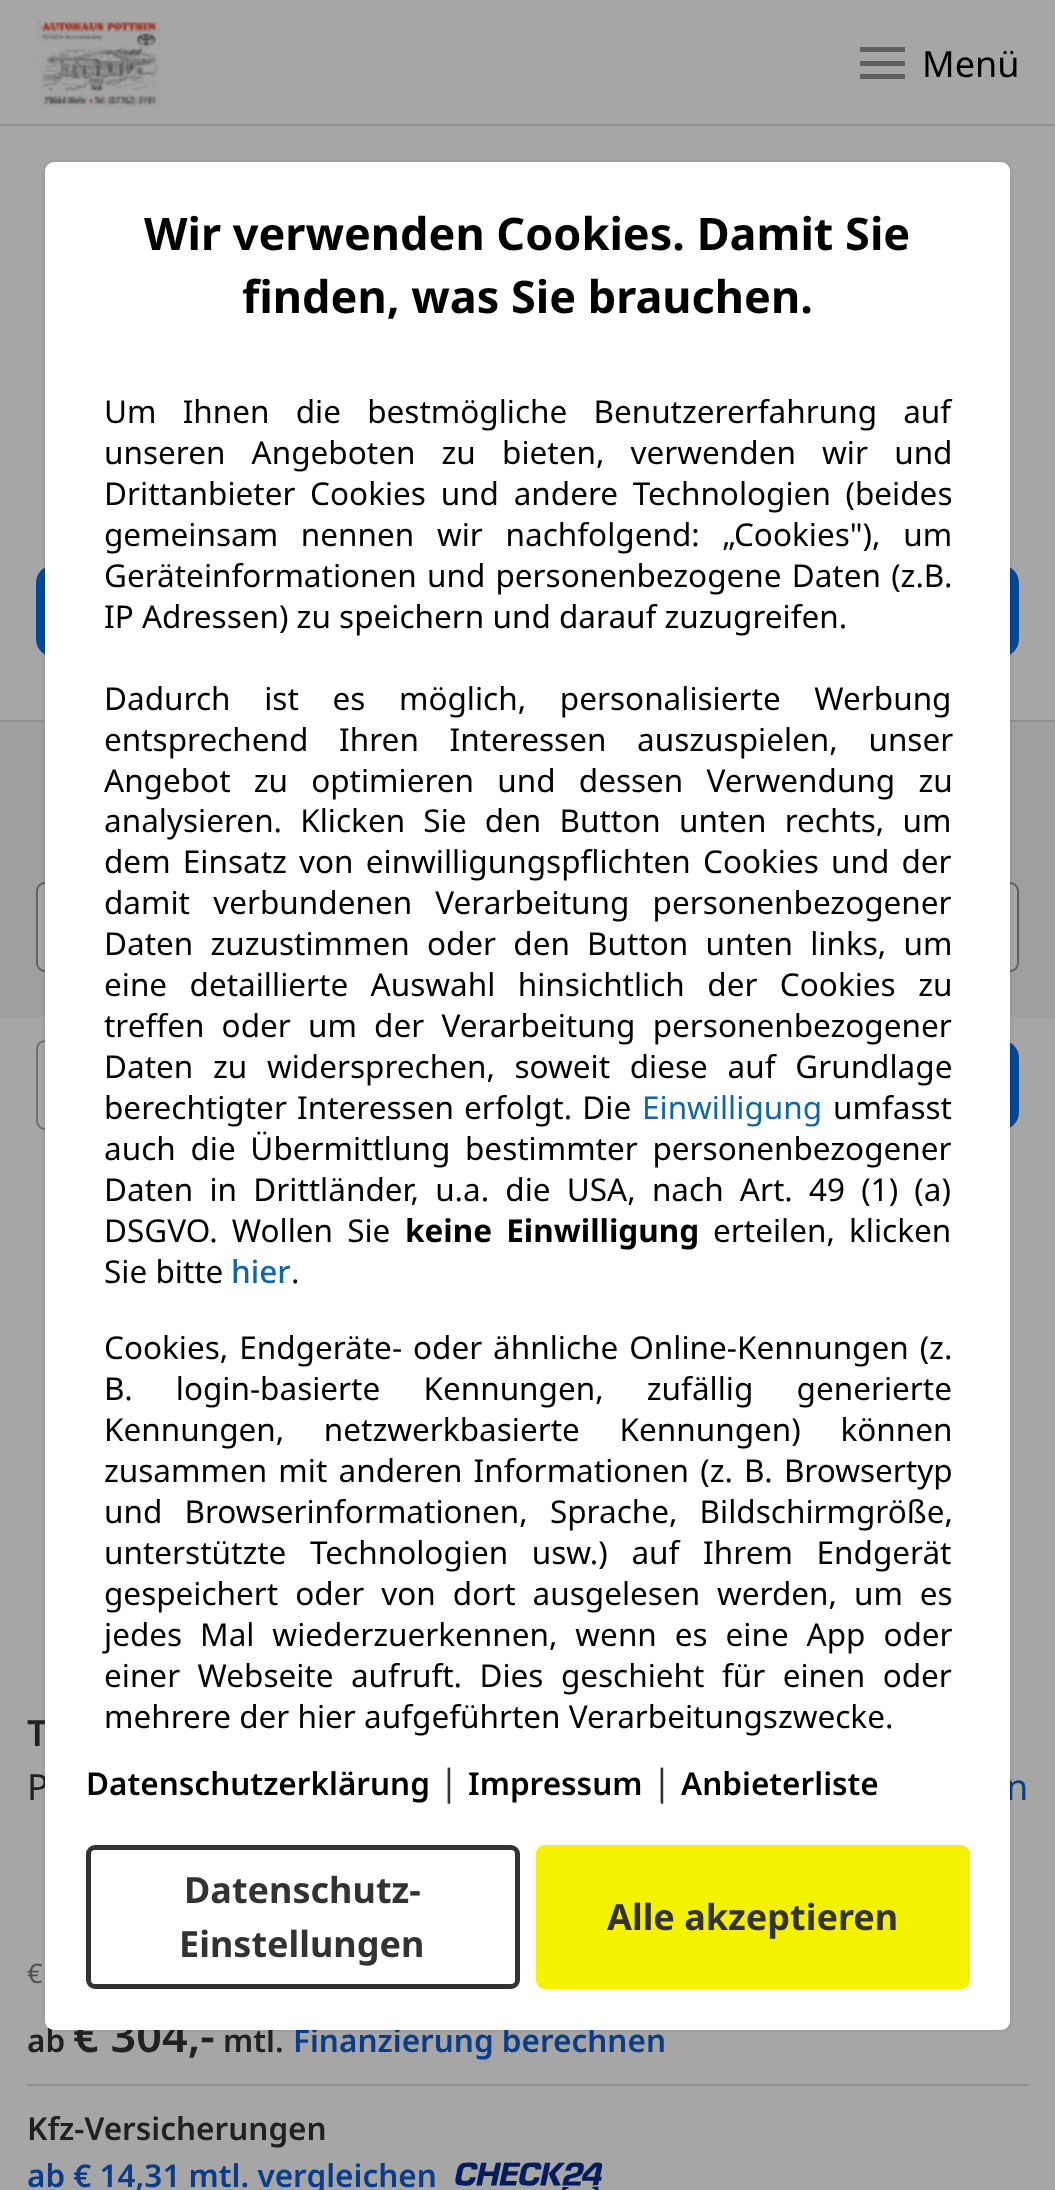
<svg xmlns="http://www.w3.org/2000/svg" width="1055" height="2190">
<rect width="100%" height="100%" fill="#9f9f9f"/>
<rect width="1055" height="124" fill="#a6a6a6"/>
<rect y="124" width="1055" height="2" fill="#8f8f8f"/>
<image x="36" y="20" width="124" height="88" href="media/1.png"/>
<rect x="860" y="61" width="45" height="5" fill="#606060"/>
<rect x="860" y="47" width="45" height="5" fill="#606060"/>
<rect x="860" y="74" width="45" height="5" fill="#606060"/>
<text x="922" y="77" style="font-family:Noto Sans;font-size:36px;fill:#000">Menü</text>
<rect y="126" width="1055" height="594" fill="#a6a6a6"/>
<rect y="720" width="1055" height="2" fill="#8f8f8f"/>
<rect x="36" y="565" width="482" height="92" rx="18" fill="#054896"/>
<rect x="536" y="565" width="483" height="92" rx="18" fill="#054896"/>
<rect x="37" y="883" width="981" height="88" rx="8" fill="#a6a6a6" stroke="#606060" stroke-width="2"/>
<rect y="1017" width="1055" height="1173" fill="#a6a6a6"/>
<rect x="37" y="1041" width="768" height="88" rx="8" fill="none" stroke="#707070" stroke-width="2"/>
<rect x="833" y="1040" width="186" height="90" rx="18" fill="#054896"/>
<text x="27" y="1746" style="font-family:Noto Sans;font-size:36px;font-weight:600;fill:#212121">T</text>
<text x="27" y="1800" style="font-family:Noto Sans;font-size:36px;fill:#212121">P</text>
<text x="1006" y="1800" style="font-family:Noto Sans;font-size:36px;fill:#0a3c89">n</text>
<text x="27" y="1983" style="font-family:Noto Sans;font-size:27px;fill:#515151">€</text>
<text x="27" y="2052" style="font-family:Noto Sans;font-size:31.5px;font-weight:600;fill:#212121">ab</text>
<text x="73" y="2052" style="font-family:Noto Sans;font-size:45px;font-weight:600;fill:#212121">€ 304,-</text>
<text x="223" y="2052" style="font-family:Noto Sans;font-size:31.5px;font-weight:600;fill:#212121">mtl.</text>
<text x="293" y="2052" style="font-family:Noto Sans;font-size:31.5px;font-weight:600;fill:#0a3c89">Finanzierung berechnen</text>
<rect x="27" y="2084" width="1001" height="2" fill="#8f8f8f"/>
<text x="27" y="2140" style="font-family:Noto Sans;font-size:31.5px;font-weight:600;fill:#212121">Kfz-Versicherungen</text>
<text x="27" y="2187" style="font-family:Noto Sans;font-size:31.5px;font-weight:600;fill:#0a3c89">ab € 14,31 mtl. vergleichen</text>
<image x="455" y="2162" width="148" height="28" href="media/2.png"/>
<rect x="45" y="162" width="965" height="1868" rx="9" fill="#0000001f" filter="blur(2px)"/>
<rect x="45" y="162" width="965" height="1868" rx="9" fill="#fff"/>
<text x="144" y="250" style="font-family:Noto Sans;font-size:45px;font-weight:bold;fill:#000">Wir verwenden Cookies. Damit Sie</text>
<text x="242" y="313" style="font-family:Noto Sans;font-size:45px;font-weight:bold;fill:#000">finden, was Sie brauchen.</text>
<text x="104" y="423" word-spacing="18" style="font-family:Noto Sans;font-size:31.5px;fill:#000">Um Ihnen die bestmögliche Benutzererfahrung auf</text>
<text x="104" y="464" word-spacing="18" style="font-family:Noto Sans;font-size:31.5px;fill:#000">unseren Angeboten zu bieten, verwenden wir und</text>
<text x="104" y="505" word-spacing="6.5" style="font-family:Noto Sans;font-size:31.5px;fill:#000">Drittanbieter Cookies und andere Technologien (beides</text>
<text x="104" y="546" word-spacing="14.5" style="font-family:Noto Sans;font-size:31.5px;fill:#000">gemeinsam nennen wir nachfolgend: „Cookies"), um</text>
<text x="104" y="587" word-spacing="2" style="font-family:Noto Sans;font-size:31.5px;fill:#000">Geräteinformationen und personenbezogene Daten (z.B.</text>
<text x="104" y="628" style="font-family:Noto Sans;font-size:31.5px;fill:#000">IP Adressen) zu speichern und darauf zuzugreifen.</text>
<text x="104" y="710" word-spacing="25.5" style="font-family:Noto Sans;font-size:31.5px;fill:#000">Dadurch ist es möglich, personalisierte Werbung</text>
<text x="104" y="751" word-spacing="22.5" style="font-family:Noto Sans;font-size:31.5px;fill:#000">entsprechend Ihren Interessen auszuspielen, unser</text>
<text x="104" y="792" word-spacing="15" style="font-family:Noto Sans;font-size:31.5px;fill:#000">Angebot zu optimieren und dessen Verwendung zu</text>
<text x="104" y="832" word-spacing="10" style="font-family:Noto Sans;font-size:31.5px;fill:#000">analysieren. Klicken Sie den Button unten rechts, um</text>
<text x="104" y="873" word-spacing="4" style="font-family:Noto Sans;font-size:31.5px;fill:#000">dem Einsatz von einwilligungspflichten Cookies und der</text>
<text x="104" y="914" word-spacing="15" style="font-family:Noto Sans;font-size:31.5px;fill:#000">damit verbundenen Verarbeitung personenbezogener</text>
<text x="104" y="955" word-spacing="9" style="font-family:Noto Sans;font-size:31.5px;fill:#000">Daten zuzustimmen oder den Button unten links, um</text>
<text x="104" y="996" word-spacing="14.25" style="font-family:Noto Sans;font-size:31.5px;fill:#000">eine detaillierte Auswahl hinsichtlich der Cookies zu</text>
<text x="104" y="1037" word-spacing="9" style="font-family:Noto Sans;font-size:31.5px;fill:#000">treffen oder um der Verarbeitung personenbezogener</text>
<text x="104" y="1078" word-spacing="11.5" style="font-family:Noto Sans;font-size:31.5px;fill:#000">Daten zu widersprechen, soweit diese auf Grundlage</text>
<text x="104" y="1119" word-spacing="2" style="font-family:Noto Sans;font-size:31.5px;fill:#000">berechtigter Interessen erfolgt. Die</text>
<text x="642" y="1119" style="font-family:Noto Sans;font-size:31.5px;fill:#1166a8">Einwilligung</text>
<text x="833" y="1119" style="font-family:Noto Sans;font-size:31.5px;fill:#000">umfasst</text>
<text x="104" y="1160" word-spacing="6.5" style="font-family:Noto Sans;font-size:31.5px;fill:#000">auch die Übermittlung bestimmter personenbezogener</text>
<text x="104" y="1201" word-spacing="8" style="font-family:Noto Sans;font-size:31.5px;fill:#000">Daten in Drittländer, u.a. die USA, nach Art. 49 (1) (a)</text>
<text x="104" y="1242" word-spacing="6" style="font-family:Noto Sans;font-size:31.5px;fill:#000">DSGVO. Wollen Sie</text>
<text x="405" y="1242" word-spacing="6" style="font-family:Noto Sans;font-size:31.5px;font-weight:bold;fill:#000">keine Einwilligung</text>
<text x="713" y="1242" word-spacing="6" style="font-family:Noto Sans;font-size:31.5px;fill:#000">erteilen, klicken</text>
<text x="104" y="1283" style="font-family:Noto Sans;font-size:31.5px;fill:#000">Sie bitte</text>
<text x="231" y="1283" style="font-family:Noto Sans;font-size:31.5px;font-weight:500;fill:#1166a8">hier</text>
<text x="291" y="1283" style="font-family:Noto Sans;font-size:31.5px;fill:#000">.</text>
<text x="104" y="1359" word-spacing="2.75" style="font-family:Noto Sans;font-size:31.5px;fill:#000">Cookies, Endgeräte- oder ähnliche Online-Kennungen (z.</text>
<text x="104" y="1400" word-spacing="35" style="font-family:Noto Sans;font-size:31.5px;fill:#000">B. login-basierte Kennungen, zufällig generierte</text>
<text x="104" y="1441" word-spacing="31.5" style="font-family:Noto Sans;font-size:31.5px;fill:#000">Kennungen, netzwerkbasierte Kennungen) können</text>
<text x="104" y="1482" word-spacing="3" style="font-family:Noto Sans;font-size:31.5px;fill:#000">zusammen mit anderen Informationen (z. B. Browsertyp</text>
<text x="104" y="1523" word-spacing="14" style="font-family:Noto Sans;font-size:31.5px;fill:#000">und Browserinformationen, Sprache, Bildschirmgröße,</text>
<text x="104" y="1564" word-spacing="15.5" style="font-family:Noto Sans;font-size:31.5px;fill:#000">unterstützte Technologien usw.) auf Ihrem Endgerät</text>
<text x="104" y="1605" word-spacing="8.75" style="font-family:Noto Sans;font-size:31.5px;fill:#000">gespeichert oder von dort ausgelesen werden, um es</text>
<text x="104" y="1646" word-spacing="9.75" style="font-family:Noto Sans;font-size:31.5px;fill:#000">jedes Mal wiederzuerkennen, wenn es eine App oder</text>
<text x="104" y="1687" word-spacing="9.25" style="font-family:Noto Sans;font-size:31.5px;fill:#000">einer Webseite aufruft. Dies geschieht für einen oder</text>
<text x="104" y="1728" style="font-family:Noto Sans;font-size:31.5px;fill:#000">mehrere der hier aufgeführten Verarbeitungszwecke.</text>
<text x="86" y="1795" style="font-family:Noto Sans;font-size:31.5px;font-weight:600;fill:#000">Datenschutzerklärung</text>
<text x="439" y="1795" style="font-family:Noto Sans;font-size:36px;fill:#333">|</text>
<text x="468" y="1795" style="font-family:Noto Sans;font-size:31.5px;font-weight:600;fill:#000">Impressum</text>
<text x="652" y="1795" style="font-family:Noto Sans;font-size:36px;fill:#333">|</text>
<text x="681" y="1795" style="font-family:Noto Sans;font-size:31.5px;font-weight:600;fill:#000">Anbieterliste</text>
<rect x="88.5" y="1847.5" width="429" height="139" rx="6.5" fill="none" stroke="#333" stroke-width="5"/>
<text x="184" y="1903" style="font-family:Noto Sans;font-size:36px;font-weight:bold;fill:#333">Datenschutz-</text>
<text x="179" y="1957" style="font-family:Noto Sans;font-size:36px;font-weight:bold;fill:#333">Einstellungen</text>
<rect x="536" y="1845" width="434" height="144" rx="9" fill="#f5f200"/>
<text x="607" y="1930" style="font-family:Noto Sans;font-size:36px;font-weight:bold;fill:#333">Alle akzeptieren</text>
</svg>
